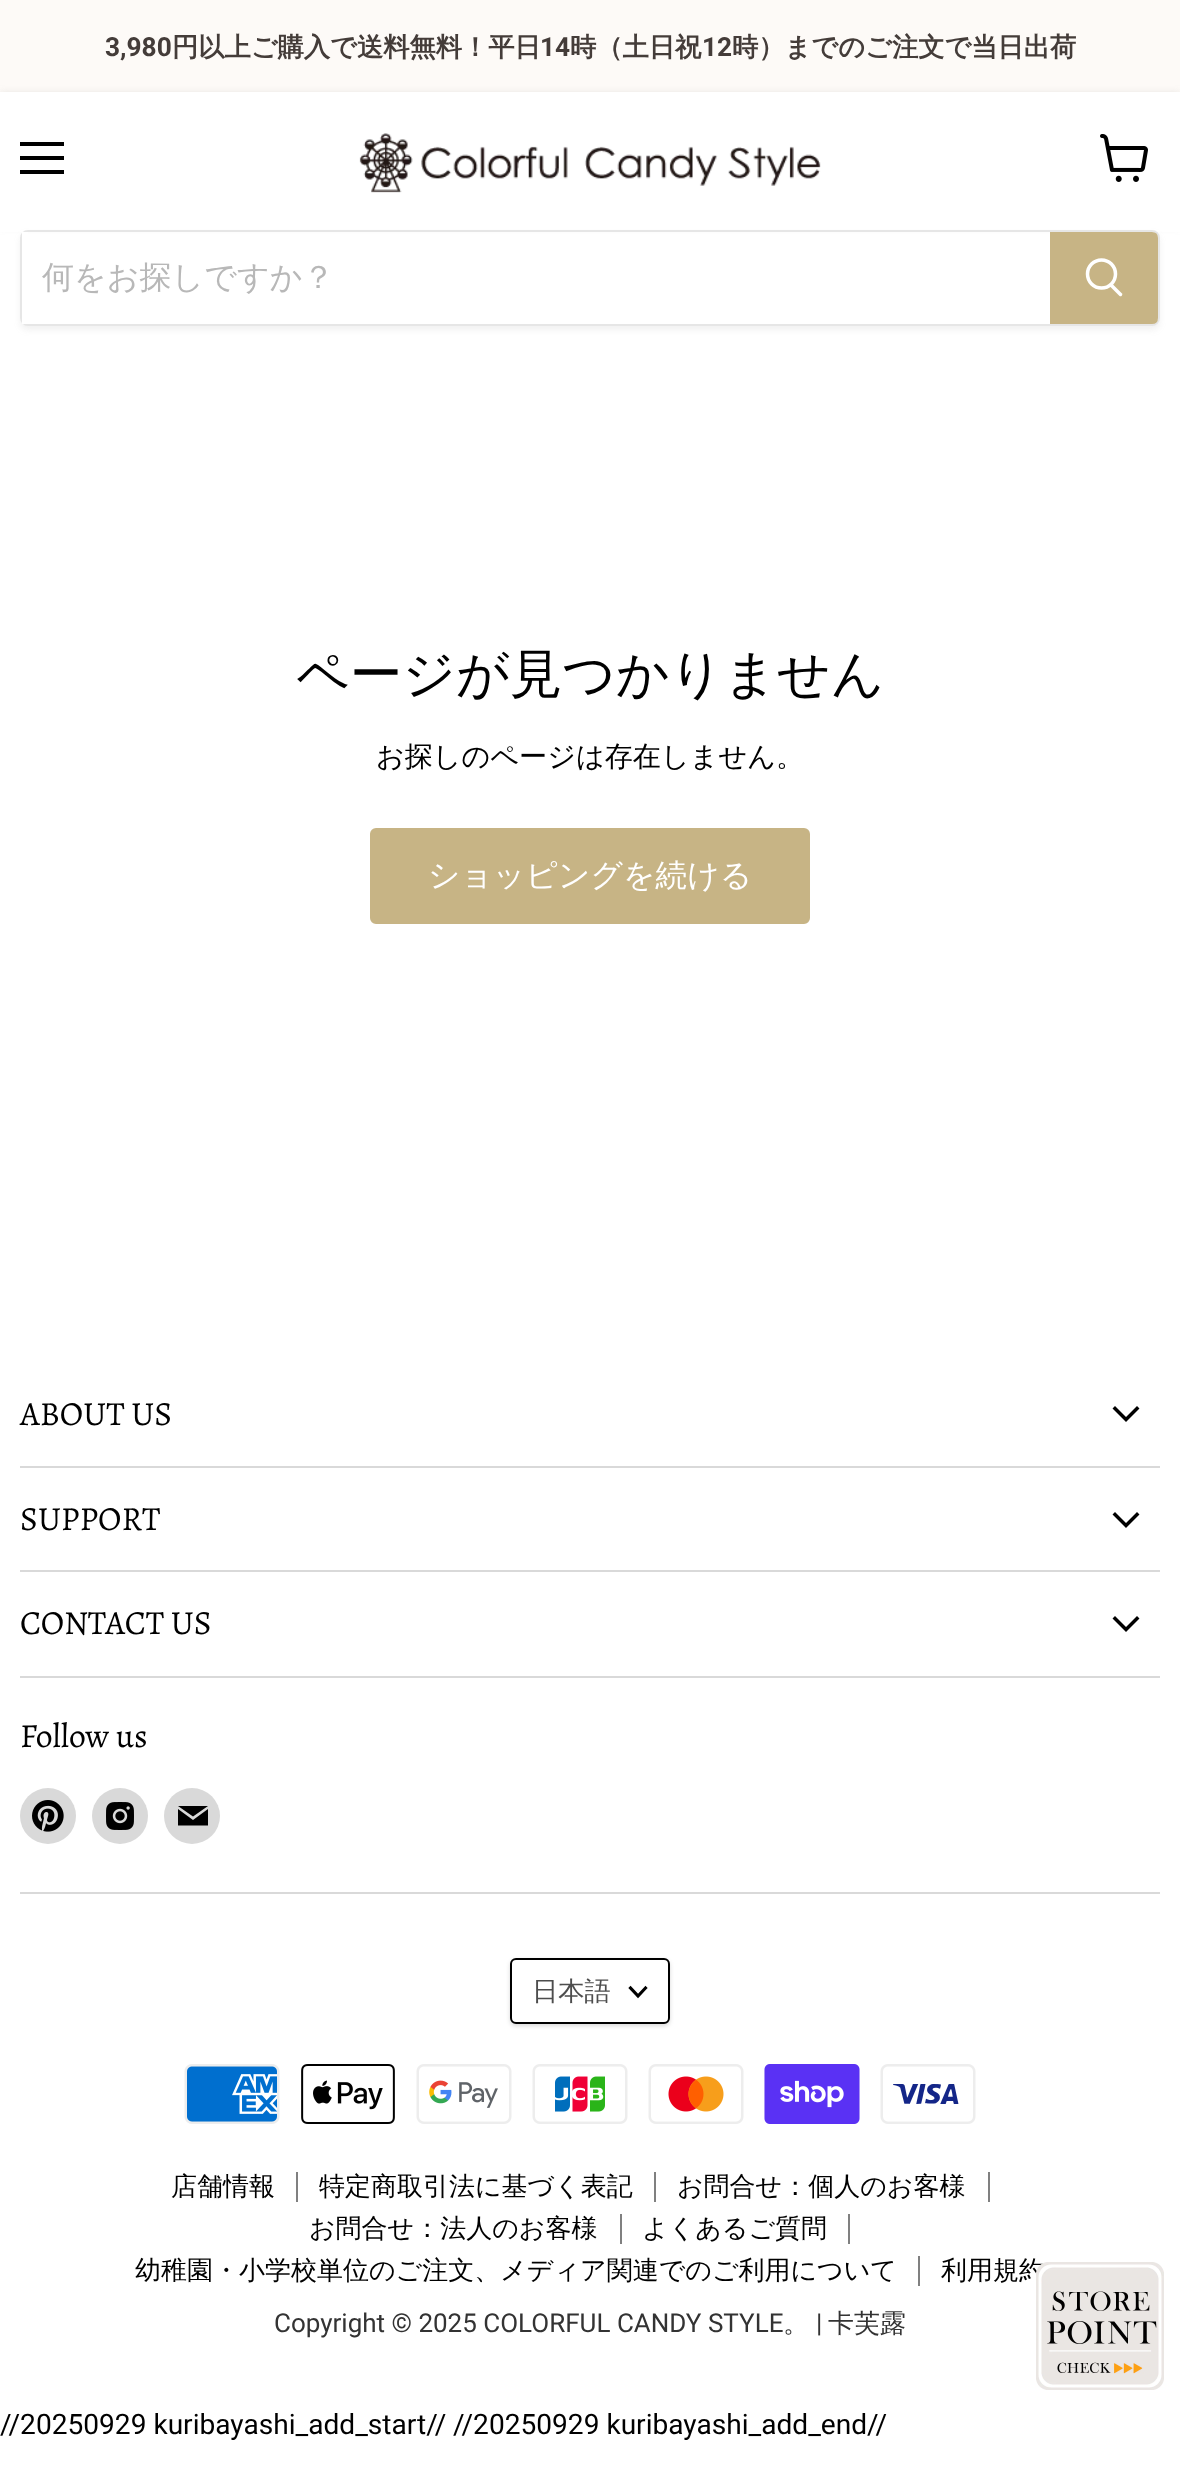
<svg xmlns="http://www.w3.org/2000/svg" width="1180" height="2486">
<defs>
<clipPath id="clip1"><path d="M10 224h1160v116h-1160zm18 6h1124c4.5 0 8 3.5 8 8v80c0 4.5-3.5 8-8 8h-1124c-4.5 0-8-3.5-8-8v-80c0-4.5 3.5-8 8-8z" clip-rule="evenodd"/></clipPath>
</defs>
<rect width="100%" height="100%" fill="#fff"/>
<rect width="1180" height="92" fill="#fdfaf7"/>
<text x="105" y="56" style="font-family:Roboto;font-size:26.25px;font-weight:bold;fill:#443c39">3,980</text>
<text x="172" y="56" style="font-family:WenQuanYi Zen Hei;font-size:26.25px;font-weight:bold;fill:#443c39">円以上ご購入で送料無料！平日</text>
<text x="540" y="56" style="font-family:Roboto;font-size:26.25px;font-weight:bold;fill:#443c39">14</text>
<text x="570" y="56" style="font-family:WenQuanYi Zen Hei;font-size:26.25px;font-weight:bold;fill:#443c39">時（土日祝</text>
<text x="702" y="56" style="font-family:Roboto;font-size:26.25px;font-weight:bold;fill:#443c39">12</text>
<text x="732" y="56" style="font-family:WenQuanYi Zen Hei;font-size:26.25px;font-weight:bold;fill:#443c39">時）までのご注文で当日出荷</text>
<rect y="94" width="1180" height="132" fill="#80808040" filter="blur(4px)"/>
<rect y="92" width="1180" height="140" fill="#fff"/>
<rect x="20" y="142" width="44" height="4" fill="#000"/>
<rect x="20" y="156" width="44" height="4" fill="#000"/>
<rect x="20" y="170" width="44" height="4" fill="#000"/>
<image x="359" y="133" width="462" height="60" href="media/1.png"/>
<image x="1100" y="134" width="48" height="48" href="media/2.png"/>
<g clip-path="url(#clip1)">
<rect x="20" y="234" width="1140" height="96" rx="8" fill="#8080801c" filter="blur(3px)"/>
</g>
<rect x="21" y="231" width="1138" height="94" rx="7" fill="none" stroke="#80808033" stroke-width="2"/>
<rect x="22" y="232" width="6" height="92" fill="#fff"/>
<text x="42" y="288" style="font-family:WenQuanYi Zen Hei;font-size:32px;font-weight:500;fill:#b8b8b8">何をお探しですか？</text>
<path d="M1051 233h101c3 0 5 2 5 5v80c0 3-2 5-5 5h-101z" fill="#c7b485" stroke="#c7b485" stroke-width="2"/>
<path d="M1120.5 294.5l-9.5-9.5" fill="none" stroke="#fff" stroke-width="3.5" stroke-linecap="round"/>
<circle cx="1101.5" cy="274" r="14" fill="none" stroke="#fff" stroke-width="3.5"/>
<text x="296" y="692" style="font-family:WenQuanYi Zen Hei;font-size:52.5px;font-weight:500;fill:#000">ページが見つかりません</text>
<text x="376" y="766" style="font-family:WenQuanYi Zen Hei;font-size:28.1px;font-weight:500;fill:#000">お探しのページは存在しません。</text>
<rect x="371" y="829" width="438" height="94" rx="5" fill="#c7b485" stroke="#c7b485" stroke-width="2"/>
<text x="428" y="886" style="font-family:WenQuanYi Zen Hei;font-size:31.75px;font-weight:500;fill:#fff">ショッピングを続ける</text>
<rect x="20" y="1466" width="1140" height="2" fill="#d9d9d9"/>
<text x="20" y="1425" style="font-family:Alegreya;font-size:33.75px;fill:#000">ABOUT US</text>
<path d="M1126 1419.5l11-11m-11 11l-11-11" fill="none" stroke="#000" stroke-width="3.5" stroke-linecap="square"/>
<rect x="20" y="1570" width="1140" height="2" fill="#d9d9d9"/>
<text x="20" y="1530" style="font-family:Alegreya;font-size:33.75px;fill:#000">SUPPORT</text>
<path d="M1126 1525.5l11-11m-11 11l-11-11" fill="none" stroke="#000" stroke-width="3.5" stroke-linecap="square"/>
<rect x="20" y="1676" width="1140" height="2" fill="#d9d9d9"/>
<text x="20" y="1634" style="font-family:Alegreya;font-size:33.75px;fill:#000">CONTACT US</text>
<path d="M1126 1629.5l11-11m-11 11l-11-11" fill="none" stroke="#000" stroke-width="3.5" stroke-linecap="square"/>
<rect x="20" y="1892" width="1140" height="2" fill="#d9d9d9"/>
<text x="20" y="1747" style="font-family:Alegreya;font-size:33.75px;fill:#000">Follow us</text>
<circle cx="48" cy="1816" r="28" fill="#d9d9d9"/>
<image x="32" y="1800" width="32" height="32" href="media/3.png"/>
<circle cx="120" cy="1816" r="28" fill="#d9d9d9"/>
<image x="106" y="1802" width="28" height="28" href="media/4.png"/>
<circle cx="192" cy="1816" r="28" fill="#d9d9d9"/>
<path d="M208 1806h-30l15 10.5zm-15 14l-15-11v16.5h30v-16.5z" fill="#000" fill-rule="evenodd"/>
<rect x="510" y="1960" width="160" height="66" rx="6" fill="#00000026" filter="blur(2px)"/>
<rect x="511" y="1959" width="158" height="64" rx="5" fill="#fff" stroke="#000" stroke-width="2"/>
<text x="532" y="2000" style="font-family:WenQuanYi Zen Hei;font-size:26.25px;font-weight:500;fill:#4d4d4d">日本語</text>
<path d="M638 1996l7.5-8m-7.5 8l-7.5-8" fill="none" stroke="#000" stroke-width="3.1" stroke-linecap="square"/>
<image x="184" y="2064" width="96" height="60" href="media/5.png"/>
<image x="301" y="2064" width="94" height="60" href="media/6.png"/>
<image x="416" y="2064" width="96" height="60" href="media/7.png"/>
<image x="532" y="2064" width="96" height="60" href="media/8.png"/>
<image x="648" y="2064" width="96" height="60" href="media/9.png"/>
<image x="764" y="2064" width="96" height="60" href="media/10.png"/>
<image x="880" y="2064" width="96" height="60" href="media/11.png"/>
<rect x="296" y="2172" width="2" height="30" fill="#808080"/>
<text x="171" y="2195" style="font-family:WenQuanYi Zen Hei;font-size:26px;font-weight:500;fill:#000">店舗情報</text>
<rect x="654" y="2172" width="2" height="30" fill="#808080"/>
<text x="319" y="2195" style="font-family:WenQuanYi Zen Hei;font-size:26px;font-weight:500;fill:#000">特定商取引法に基づく表記</text>
<rect x="988" y="2172" width="2" height="30" fill="#808080"/>
<text x="677" y="2195" style="font-family:WenQuanYi Zen Hei;font-size:26px;font-weight:500;fill:#000">お問合せ：個人のお客様</text>
<rect x="620" y="2214" width="2" height="30" fill="#808080"/>
<text x="309" y="2237" style="font-family:WenQuanYi Zen Hei;font-size:26px;font-weight:500;fill:#000">お問合せ：法人のお客様</text>
<rect x="848" y="2214" width="2" height="30" fill="#808080"/>
<text x="642" y="2237" style="font-family:WenQuanYi Zen Hei;font-size:26px;font-weight:500;fill:#000">よくあるご質問</text>
<rect x="918" y="2256" width="2" height="30" fill="#808080"/>
<text x="135" y="2279" style="font-family:WenQuanYi Zen Hei;font-size:26px;font-weight:500;fill:#000">幼稚園・小学校単位のご注文、メディア関連でのご利用について</text>
<text x="941" y="2279" style="font-family:WenQuanYi Zen Hei;font-size:26px;font-weight:500;fill:#000">利用規約</text>
<text x="274" y="2332" style="font-family:Roboto;font-size:26px;fill:#333">Copyright © 2025 COLORFUL CANDY STYLE</text>
<text x="783" y="2332" style="font-family:WenQuanYi Zen Hei;font-size:26px;font-weight:500;fill:#333">。</text>
<text x="816" y="2332" style="font-family:Roboto;font-size:26px;fill:#333">|</text>
<text x="828" y="2332" style="font-family:WenQuanYi Zen Hei;font-size:26px;font-weight:500;fill:#333">卡芙露</text>
<image x="1036" y="2262" width="128" height="128" href="media/12.png"/>
<text x="0" y="2434" style="font-family:Roboto;font-size:28.1px;fill:#000">//20250929 kuribayashi_add_start//</text>
<text x="453" y="2434" style="font-family:Roboto;font-size:28.1px;fill:#000">//20250929 kuribayashi_add_end//</text>
</svg>
